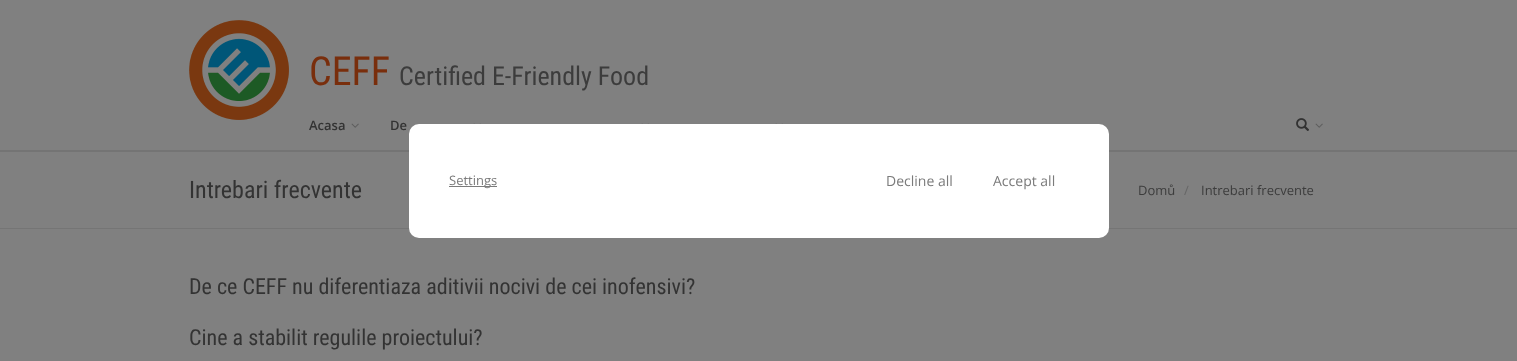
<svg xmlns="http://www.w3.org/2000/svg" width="1517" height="361">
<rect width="100%" height="100%" fill="#808080"/>
<rect y="150" width="1517" height="2" fill="#747474"/>
<image x="189" y="20" width="100" height="100" href="media/1.png"/>
<text x="309" y="85" style="font-family:Roboto Condensed;font-size:40px;fill:#792e0c">CEFF</text>
<text x="399" y="85" style="font-family:Roboto Condensed;font-size:26px;fill:#3c3c3c">Certified E-Friendly Food</text>
<text x="309" y="130" style="font-family:Open Sans;font-size:13px;font-weight:600;fill:#333">Acasa</text>
<image x="351" y="123" width="8" height="5" href="media/2.png"/>
<text x="390" y="130" style="font-family:Open Sans;font-size:13px;font-weight:600;fill:#333">De</text>
<image x="473" y="123" width="8" height="1" href="media/3.png"/>
<image x="641" y="123" width="8" height="1" href="media/3.png"/>
<image x="775" y="123" width="8" height="1" href="media/3.png"/>
<image x="1296" y="118" width="13" height="13" href="media/4.png"/>
<image x="1315" y="123" width="8" height="5" href="media/2.png"/>
<rect y="228" width="1517" height="1" fill="#757575"/>
<rect x="409" y="124" width="700" height="114" rx="10" fill="#fff"/>
<rect x="449" y="186" width="48" height="1" fill="#7b7b7b"/>
<text x="449" y="185" style="font-family:Open Sans;font-size:13px;fill:#7b7b7b">Settings</text>
<text x="886" y="186" style="font-family:Open Sans;font-size:14px;fill:#7b7b7b">Decline all</text>
<text x="993" y="186" style="font-family:Open Sans;font-size:14px;fill:#7b7b7b">Accept all</text>
<text x="189" y="198" style="font-family:Roboto Condensed;font-size:24px;fill:#333">Intrebari frecvente</text>
<text x="1138" y="195" style="font-family:Open Sans;font-size:13px;fill:#3c3c3c">Domů</text>
<text x="1184" y="195" style="font-family:Open Sans;font-size:13px;fill:#666">/</text>
<text x="1201" y="195" style="font-family:Open Sans;font-size:13px;fill:#3c3c3c">Intrebari frecvente</text>
<text x="189" y="294" style="font-family:Roboto Condensed;font-size:22px;fill:#333">De ce CEFF nu diferentiaza aditivii nocivi de cei inofensivi?</text>
<text x="189" y="345" style="font-family:Roboto Condensed;font-size:22px;fill:#333">Cine a stabilit regulile proiectului?</text>
</svg>
